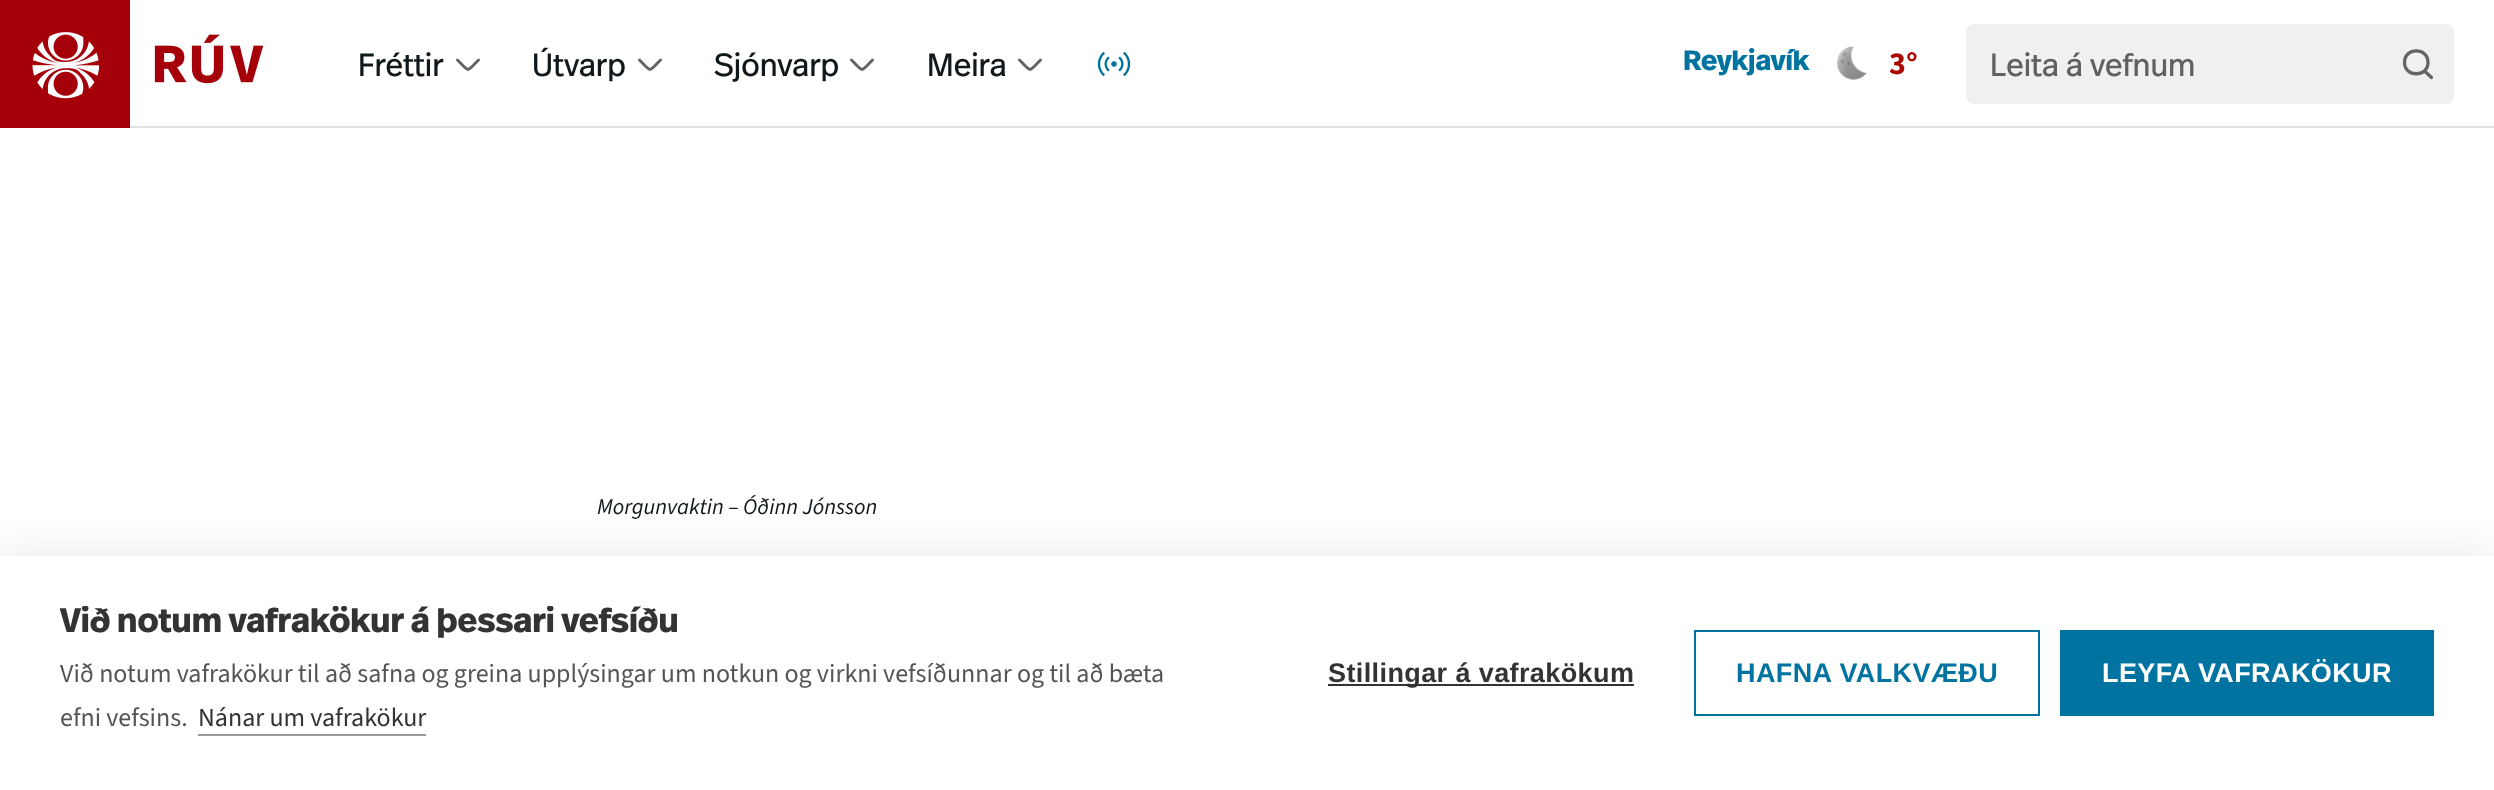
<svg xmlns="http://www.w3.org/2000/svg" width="2494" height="790">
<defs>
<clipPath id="clip1"><rect x="60" y="606" width="1148" height="134"/></clipPath>
</defs>
<rect width="100%" height="100%" fill="#fff"/>
<rect x="130" y="126" width="2364" height="2" fill="#e2e2e2"/>
<image x="0" y="0" width="264" height="128" href="media/1.png"/>
<text x="358" y="76" style="font-family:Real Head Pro;font-size:32px;fill:#11181c">Fréttir</text>
<path d="M478.5 60c-12.5 12.5-8.5 12.5-21 0" fill="none" stroke="#646464" stroke-width="3" stroke-linecap="round" stroke-linejoin="round"/>
<text x="532" y="76" style="font-family:Real Head Pro;font-size:32px;fill:#11181c">Útvarp</text>
<path d="M660.5 60c-12.5 12.5-8.5 12.5-21 0" fill="none" stroke="#646464" stroke-width="3" stroke-linecap="round" stroke-linejoin="round"/>
<text x="714" y="76" style="font-family:Real Head Pro;font-size:32px;fill:#11181c">Sjónvarp</text>
<path d="M872.5 60c-12.5 12.5-8.5 12.5-21 0" fill="none" stroke="#646464" stroke-width="3" stroke-linecap="round" stroke-linejoin="round"/>
<text x="927" y="76" style="font-family:Real Head Pro;font-size:32px;fill:#11181c">Meira</text>
<path d="M1040.5 60c-12.5 12.5-8.5 12.5-21 0" fill="none" stroke="#646464" stroke-width="3" stroke-linecap="round" stroke-linejoin="round"/>
<image x="1097" y="51" width="34" height="26" href="media/2.png"/>
<text x="1683" y="70" style="font-family:Real Head Pro;font-size:28px;font-weight:bold;fill:#0073a0">Reykjavík</text>
<image x="1836" y="46" width="31" height="34" href="media/3.png"/>
<text x="1889" y="74" style="font-family:'Source Sans 3';font-size:32px;font-weight:bold;fill:#ac0802">3°</text>
<rect x="1966" y="24" width="488" height="80" rx="8" fill="#f2f0ef"/>
<text x="1990" y="76" style="font-family:Real Head Pro;font-size:32px;fill:#616060">Leita á vefnum</text>
<path d="M2431.5 77.5l-7-6.5m3.5-8.5c0 15-23.5 15-23.5 0c0-15.5 23.5-15.5 23.5 0z" fill="none" stroke="#646464" stroke-width="3.3" stroke-linecap="round"/>
<text x="597" y="514" style="font-family:'Source Sans 3';font-size:22.4px;font-style:italic;fill:#11181c">Morgunvaktin – Óðinn Jónsson</text>
<rect y="556" width="2494" height="234" fill="#0000001a" filter="blur(20px)"/>
<rect y="556" width="2494" height="234" fill="#fff"/>
<g clip-path="url(#clip1)">
<text x="60" y="632" style="font-family:Real Head Pro;font-size:34px;font-weight:bold;fill:#333">Við notum vafrakökur á þessari vefsíðu</text>
</g>
<text x="60" y="682" style="font-family:'Source Sans 3';font-size:26px;fill:#555">Við notum vafrakökur til að safna og greina upplýsingar um notkun og virkni vefsíðunnar og til að bæta</text>
<text x="60" y="726" style="font-family:'Source Sans 3';font-size:26px;fill:#555">efni vefsins.</text>
<text x="198" y="726" style="font-family:'Source Sans 3';font-size:26px;fill:#333">Nánar um vafrakökur</text>
<rect x="198" y="734" width="228" height="2" fill="#999"/>
<rect x="1328" y="684" width="306" height="2" fill="#333"/>
<text x="1328" y="682" style="font-family:Liberation Sans;font-size:27px;font-weight:bold;letter-spacing:0.4px;fill:#333">Stillingar á vafrakökum</text>
<rect x="1695" y="631" width="344" height="84" fill="none" stroke="#0073a0" stroke-width="2"/>
<text x="1736" y="682" style="font-family:Liberation Sans;font-size:27px;font-weight:bold;letter-spacing:0.4px;fill:#0073a0">HAFNA VALKVÆÐU</text>
<rect x="2060" y="630" width="374" height="86" fill="#0073a0"/>
<text x="2102" y="682" style="font-family:Liberation Sans;font-size:27px;font-weight:bold;letter-spacing:0.4px;fill:#fff">LEYFA VAFRAKÖKUR</text>
</svg>
